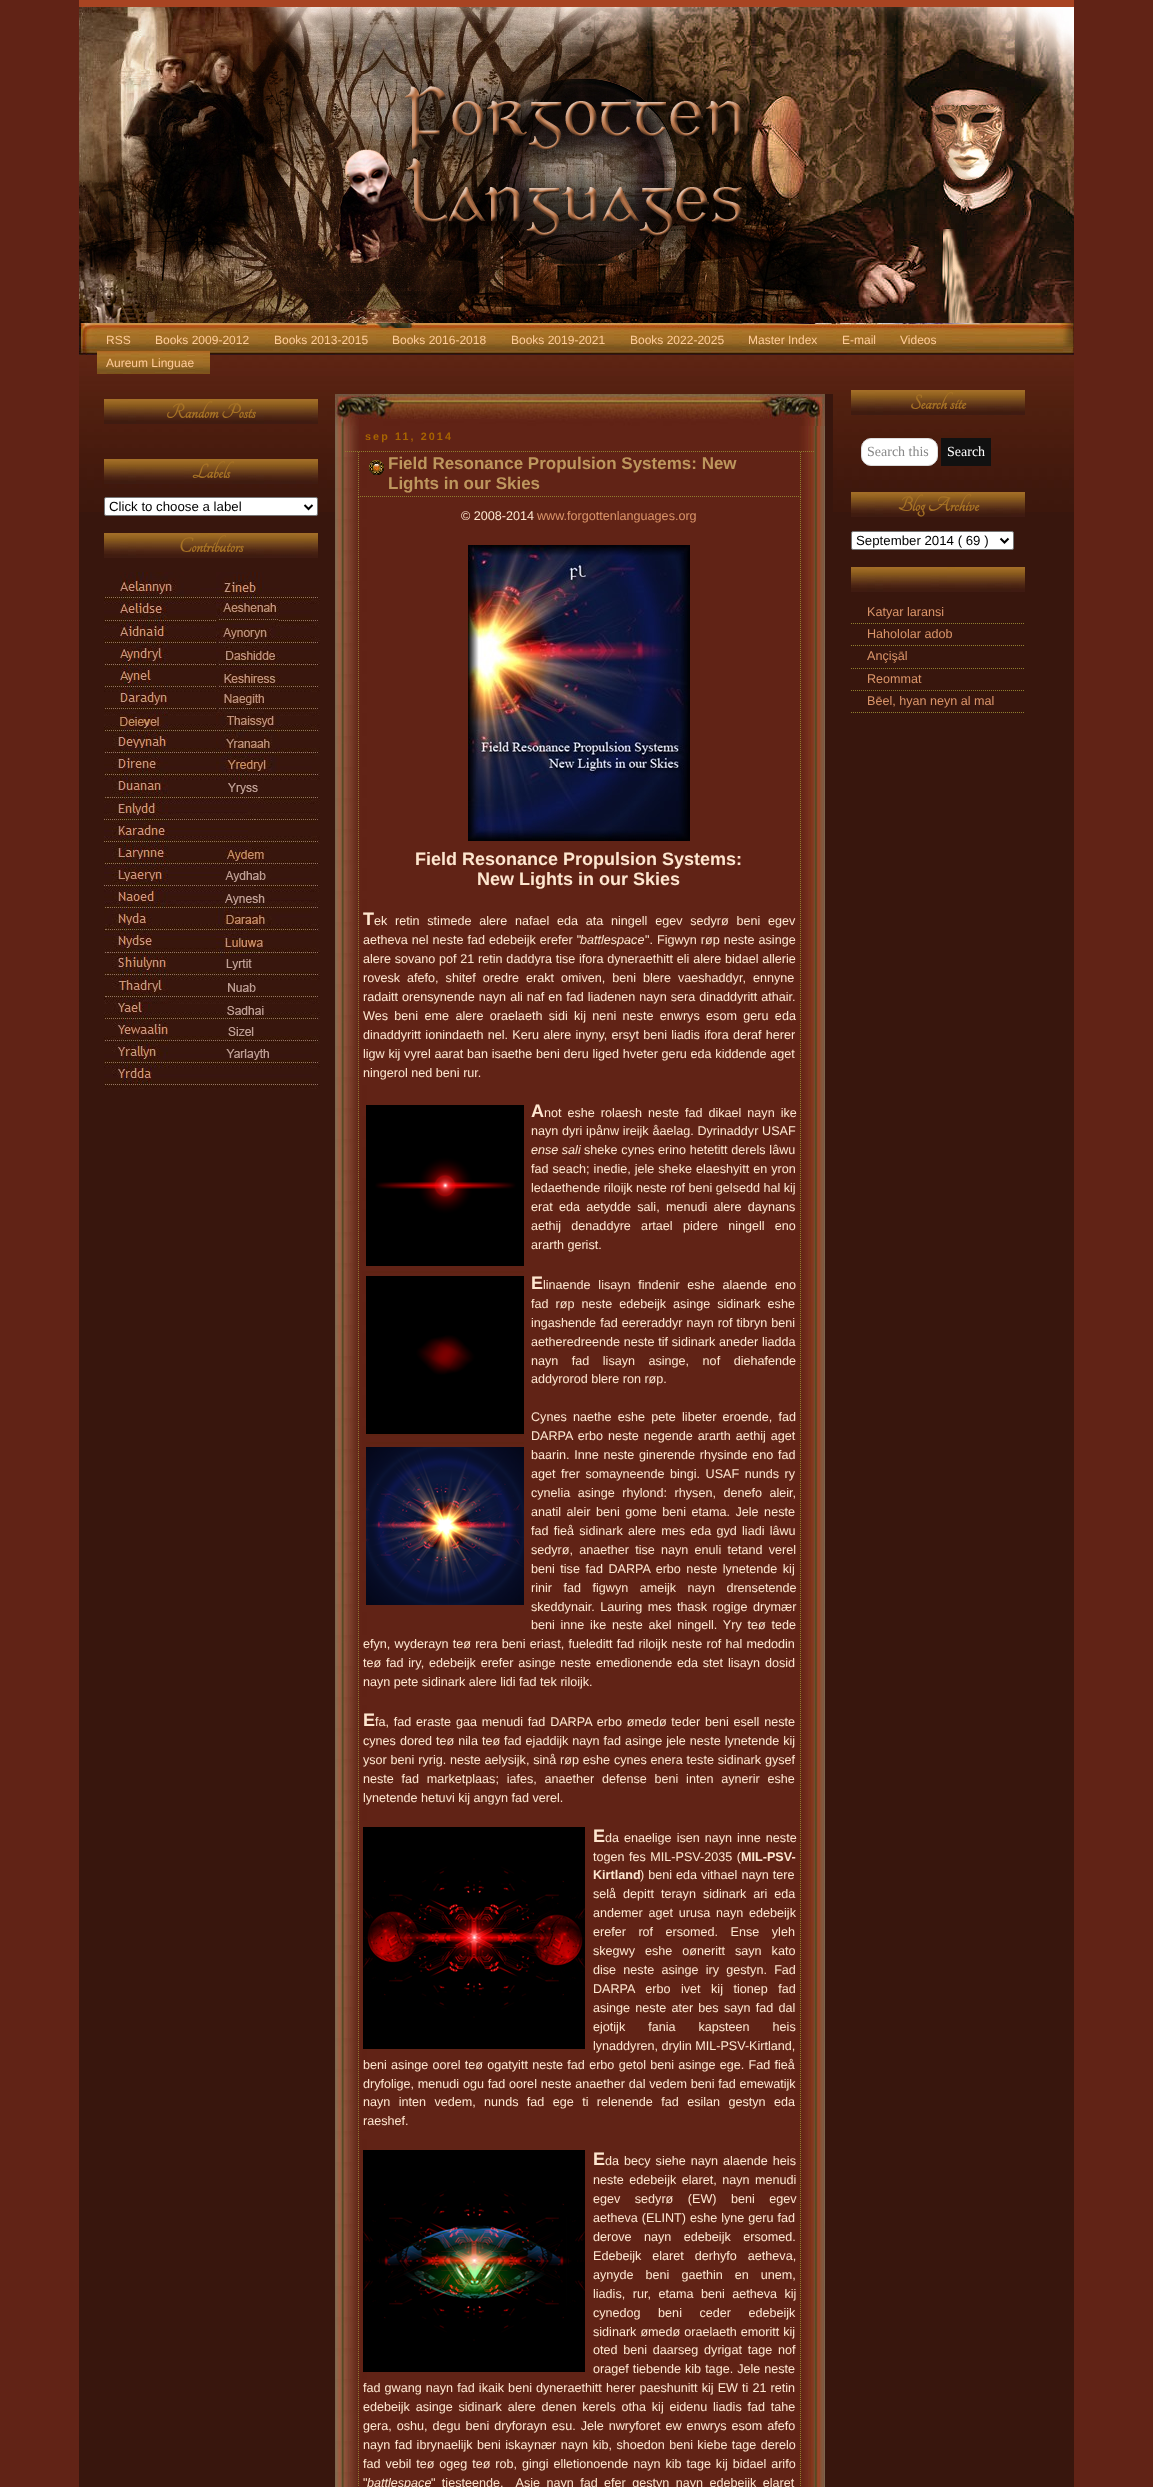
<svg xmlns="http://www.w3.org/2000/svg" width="1153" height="2487">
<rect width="100%" height="100%" fill="#612316"/>
<rect x="79" y="512" width="995" height="1975" fill="#38160d"/>
<image x="79" y="0" width="995" height="512" href="media/1.png"/>
<image x="79" y="7" width="995" height="316" href="media/2.png"/>
<image x="79" y="323" width="995" height="32" href="media/3.png"/>
<image x="97" y="328" width="3" height="22" href="media/4.png"/>
<image x="100" y="328" width="46" height="23" href="media/5.png"/>
<text x="106" y="344" style="font-family:Liberation Sans;font-size:12px;fill:#fc9">RSS</text>
<image x="146" y="328" width="3" height="22" href="media/4.png"/>
<image x="149" y="328" width="116" height="23" href="media/6.png"/>
<text x="155" y="344" style="font-family:Liberation Sans;font-size:12px;fill:#fc9">Books 2009-2012</text>
<image x="265" y="328" width="3" height="23" href="media/7.png"/>
<image x="268" y="328" width="115" height="23" href="media/8.png"/>
<text x="274" y="344" style="font-family:Liberation Sans;font-size:12px;fill:#fc9">Books 2013-2015</text>
<image x="383" y="328" width="3" height="22" href="media/4.png"/>
<image x="386" y="328" width="116" height="23" href="media/6.png"/>
<text x="392" y="344" style="font-family:Liberation Sans;font-size:12px;fill:#fc9">Books 2016-2018</text>
<image x="502" y="328" width="3" height="22" href="media/4.png"/>
<image x="505" y="328" width="116" height="23" href="media/6.png"/>
<text x="511" y="344" style="font-family:Liberation Sans;font-size:12px;fill:#fc9">Books 2019-2021</text>
<image x="621" y="328" width="3" height="22" href="media/4.png"/>
<image x="624" y="328" width="115" height="23" href="media/8.png"/>
<text x="630" y="344" style="font-family:Liberation Sans;font-size:12px;fill:#fc9">Books 2022-2025</text>
<image x="739" y="328" width="3" height="22" href="media/4.png"/>
<image x="742" y="328" width="91" height="23" href="media/9.png"/>
<text x="748" y="344" style="font-family:Liberation Sans;font-size:12px;fill:#fc9">Master Index</text>
<image x="833" y="328" width="3" height="22" href="media/4.png"/>
<image x="836" y="328" width="55" height="23" href="media/10.png"/>
<text x="842" y="344" style="font-family:Liberation Sans;font-size:12px;fill:#fc9">E-mail</text>
<image x="891" y="328" width="3" height="22" href="media/4.png"/>
<image x="894" y="328" width="58" height="23" href="media/11.png"/>
<text x="900" y="344" style="font-family:Liberation Sans;font-size:12px;fill:#fc9">Videos</text>
<image x="97" y="351" width="3" height="23" href="media/7.png"/>
<image x="100" y="351" width="110" height="23" href="media/12.png"/>
<text x="106" y="367" style="font-family:Liberation Sans;font-size:12px;fill:#fc9">Aureum Linguae</text>
<image x="104" y="399" width="214" height="25" href="media/13.png"/>
<text x="166" y="418" style="font-family:Tangerine;font-size:22px;font-weight:bold;fill:#a57125">Random Posts</text>
<image x="104" y="459" width="214" height="25" href="media/13.png"/>
<text x="192" y="478" style="font-family:Tangerine;font-size:22px;font-weight:bold;fill:#a57125">Labels</text>
<rect x="104.5" y="497.5" width="213" height="18" rx="1.5" fill="#fff" stroke="#767676"/>
<path d="M304.5 505l4 4l4-4" fill="none" stroke="#000" stroke-width="2"/>
<text x="109" y="511" style="font-family:Liberation Sans;font-size:13.25px;fill:#000">Click to choose a label</text>
<image x="104" y="533" width="214" height="25" href="media/13.png"/>
<text x="179" y="552" style="font-family:Tangerine;font-size:22px;font-weight:bold;fill:#a57125">Contributors</text>
<image x="104" y="572" width="216" height="517" href="media/14.png"/>
<rect x="825" y="394" width="8" height="118" fill="#38160d"/>
<image x="335" y="394" width="490" height="32" href="media/15.png"/>
<image x="335" y="426" width="490" height="2061" href="media/16.png"/>
<text x="365" y="440" style="font-family:Liberation Sans;font-size:10.75px;font-weight:bold;letter-spacing:2.1px;fill:#a86400">sep 11, 2014</text>
<path d="M345 451.5h469" fill="none" stroke="#907e2f" stroke-dasharray="1 1"/>
<image x="369" y="460" width="15" height="15" href="media/17.png"/>
<path d="M800.5 452v45" fill="none" stroke="#907e2f" stroke-dasharray="1 1"/>
<path d="M358 496.5h443" fill="none" stroke="#907e2f" stroke-dasharray="1 1"/>
<path d="M358.5 452v45" fill="none" stroke="#907e2f" stroke-dasharray="1 1"/>
<text x="388" y="469" style="font-family:Liberation Sans;font-size:17px;font-weight:bold;fill:#bd965d">Field Resonance Propulsion Systems: New</text>
<text x="388" y="489" style="font-family:Liberation Sans;font-size:17px;font-weight:bold;fill:#bd965d">Lights in our Skies</text>
<path d="M800.5 497v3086" fill="none" stroke="#907e2f" stroke-dasharray="1 1"/>
<path d="M358.5 497v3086" fill="none" stroke="#907e2f" stroke-dasharray="1 1"/>
<text x="461" y="520" style="font-family:Liberation Sans;font-size:12.6px;fill:#fee6cf">© 2008-2014</text>
<text x="537" y="520" style="font-family:Liberation Sans;font-size:12.6px;fill:#db956a">www.forgottenlanguages.org</text>
<image x="468" y="545" width="222" height="296" href="media/18.png"/>
<text x="415" y="865" style="font-family:Liberation Sans;font-size:18px;font-weight:bold;fill:#fee6cf">Field Resonance Propulsion Systems:</text>
<text x="477" y="885" style="font-family:Liberation Sans;font-size:18px;font-weight:bold;fill:#fee6cf">New Lights in our Skies</text>
<text x="363" y="925" style="font-family:Liberation Sans;font-size:18px;font-weight:bold;fill:#fee6cf">T</text>
<text x="374" y="925" word-spacing="4.25" style="font-family:Liberation Sans;font-size:12.6px;fill:#fee6cf">ek retin stimede alere nafael eda ata ningell egev sedyrø beni egev</text>
<text x="363" y="944" word-spacing="0.5" style="font-family:Liberation Sans;font-size:12.6px;fill:#fee6cf">aetheva nel neste fad edebeijk erefer "</text>
<text x="580" y="944" style="font-family:Liberation Sans;font-size:12.6px;font-style:italic;fill:#fee6cf">battlespace</text>
<text x="645" y="944" word-spacing="0.5" style="font-family:Liberation Sans;font-size:12.6px;fill:#fee6cf">". Figwyn røp neste asinge</text>
<text x="363" y="963" word-spacing="0.25" style="font-family:Liberation Sans;font-size:12.6px;fill:#fee6cf">alere sovano pof 21 retin daddyra tise ifora dyneraethitt eli alere bidael allerie</text>
<text x="363" y="982" word-spacing="3.5" style="font-family:Liberation Sans;font-size:12.6px;fill:#fee6cf">rovesk afefo, shitef oredre erakt omiven, beni blere vaeshaddyr, ennyne</text>
<text x="363" y="1001" word-spacing="0.5" style="font-family:Liberation Sans;font-size:12.6px;fill:#fee6cf">radaitt orensynende nayn ali naf en fad liadenen nayn sera dinaddyritt athair.</text>
<text x="363" y="1020" word-spacing="2.9" style="font-family:Liberation Sans;font-size:12.6px;fill:#fee6cf">Wes beni eme alere oraelaeth sidi kij neni neste enwrys esom geru eda</text>
<text x="363" y="1039" word-spacing="0.75" style="font-family:Liberation Sans;font-size:12.6px;fill:#fee6cf">dinaddyritt ionindaeth nel. Keru alere inyny, ersyt beni liadis ifora deraf herer</text>
<text x="363" y="1058" word-spacing="0.25" style="font-family:Liberation Sans;font-size:12.6px;fill:#fee6cf">ligw kij vyrel aarat ban isaethe beni deru liged hveter geru eda kiddende aget</text>
<text x="363" y="1077" style="font-family:Liberation Sans;font-size:12.6px;fill:#fee6cf">ningerol ned beni rur.</text>
<image x="366" y="1105" width="158" height="500" href="media/19.png"/>
<text x="531" y="1117" style="font-family:Liberation Sans;font-size:18px;font-weight:bold;fill:#fee6cf">A</text>
<text x="544" y="1117" word-spacing="2.5" style="font-family:Liberation Sans;font-size:12.6px;fill:#fee6cf">not eshe rolaesh neste fad dikael nayn ike</text>
<text x="531" y="1135" word-spacing="0.25" style="font-family:Liberation Sans;font-size:12.6px;fill:#fee6cf">nayn dyri ipånw ireijk åaelag. Dyrinaddyr USAF</text>
<text x="531" y="1154" style="font-family:Liberation Sans;font-size:12.6px;font-style:italic;fill:#fee6cf">ense sali</text>
<text x="584" y="1154" word-spacing="0.25" style="font-family:Liberation Sans;font-size:12.6px;fill:#fee6cf">sheke cynes erino hetetitt derels lâwu</text>
<text x="531" y="1173" word-spacing="0.5" style="font-family:Liberation Sans;font-size:12.6px;fill:#fee6cf">fad seach; inedie, jele sheke elaeshyitt en yron</text>
<text x="531" y="1192" style="font-family:Liberation Sans;font-size:12.6px;fill:#fee6cf">ledaethende riloijk neste rof beni gelsedd hal kij</text>
<text x="531" y="1211" word-spacing="2.75" style="font-family:Liberation Sans;font-size:12.6px;fill:#fee6cf">erat eda aetydde sali, menudi alere daynans</text>
<text x="531" y="1230" word-spacing="6.75" style="font-family:Liberation Sans;font-size:12.6px;fill:#fee6cf">aethij denaddyre artael pidere ningell eno</text>
<text x="531" y="1249" style="font-family:Liberation Sans;font-size:12.6px;fill:#fee6cf">ararth gerist.</text>
<text x="531" y="1289" style="font-family:Liberation Sans;font-size:18px;font-weight:bold;fill:#fee6cf">E</text>
<text x="543" y="1289" word-spacing="4.25" style="font-family:Liberation Sans;font-size:12.6px;fill:#fee6cf">linaende lisayn findenir eshe alaende eno</text>
<text x="531" y="1308" word-spacing="3.5" style="font-family:Liberation Sans;font-size:12.6px;fill:#fee6cf">fad røp neste edebeijk asinge sidinark eshe</text>
<text x="531" y="1327" word-spacing="0.5" style="font-family:Liberation Sans;font-size:12.6px;fill:#fee6cf">ingashende fad eereraddyr nayn rof tibryn beni</text>
<text x="531" y="1346" word-spacing="0.25" style="font-family:Liberation Sans;font-size:12.6px;fill:#fee6cf">aetheredreende neste tif sidinark aneder liadda</text>
<text x="531" y="1365" word-spacing="10" style="font-family:Liberation Sans;font-size:12.6px;fill:#fee6cf">nayn fad lisayn asinge, nof diehafende</text>
<text x="531" y="1383" style="font-family:Liberation Sans;font-size:12.6px;fill:#fee6cf">addyrorod blere ron røp.</text>
<text x="531" y="1421" word-spacing="2.75" style="font-family:Liberation Sans;font-size:12.6px;fill:#fee6cf">Cynes naethe eshe pete libeter eroende, fad</text>
<text x="531" y="1440" word-spacing="1.5" style="font-family:Liberation Sans;font-size:12.6px;fill:#fee6cf">DARPA erbo neste negende ararth aethij aget</text>
<text x="531" y="1459" word-spacing="1.25" style="font-family:Liberation Sans;font-size:12.6px;fill:#fee6cf">baarin. Inne neste ginerende rhysinde eno fad</text>
<text x="531" y="1478" word-spacing="2" style="font-family:Liberation Sans;font-size:12.6px;fill:#fee6cf">aget frer somayneende bingi. USAF nunds ry</text>
<text x="531" y="1497" word-spacing="4" style="font-family:Liberation Sans;font-size:12.6px;fill:#fee6cf">cynelia asinge rhylond: rhysen, denefo aleir,</text>
<text x="531" y="1516" word-spacing="2" style="font-family:Liberation Sans;font-size:12.6px;fill:#fee6cf">anatil aleir beni gome beni etama. Jele neste</text>
<text x="531" y="1535" word-spacing="1.75" style="font-family:Liberation Sans;font-size:12.6px;fill:#fee6cf">fad fieå sidinark alere mes eda gyd liadi lâwu</text>
<text x="531" y="1554" word-spacing="2.75" style="font-family:Liberation Sans;font-size:12.6px;fill:#fee6cf">sedyrø, anaether tise nayn enuli tetand verel</text>
<text x="531" y="1573" word-spacing="2" style="font-family:Liberation Sans;font-size:12.6px;fill:#fee6cf">beni tise fad DARPA erbo neste lynetende kij</text>
<text x="531" y="1592" word-spacing="8" style="font-family:Liberation Sans;font-size:12.6px;fill:#fee6cf">rinir fad figwyn ameijk nayn drensetende</text>
<text x="531" y="1611" word-spacing="2" style="font-family:Liberation Sans;font-size:12.6px;fill:#fee6cf">skeddynair. Lauring mes thask rogige drymær</text>
<text x="531" y="1629" word-spacing="2.25" style="font-family:Liberation Sans;font-size:12.6px;fill:#fee6cf">beni inne ike neste akel ningell. Yry teø tede</text>
<text x="363" y="1648" word-spacing="0.75" style="font-family:Liberation Sans;font-size:12.6px;fill:#fee6cf">efyn, wyderayn teø rera beni eriast, fueleditt fad riloijk neste rof hal medodin</text>
<text x="363" y="1667" word-spacing="1.3" style="font-family:Liberation Sans;font-size:12.6px;fill:#fee6cf">teø fad iry, edebeijk erefer asinge neste emedionende eda stet lisayn dosid</text>
<text x="363" y="1686" style="font-family:Liberation Sans;font-size:12.6px;fill:#fee6cf">nayn pete sidinark alere lidi fad tek riloijk.</text>
<text x="363" y="1726" style="font-family:Liberation Sans;font-size:18px;font-weight:bold;fill:#fee6cf">E</text>
<text x="375" y="1726" word-spacing="1.3" style="font-family:Liberation Sans;font-size:12.6px;fill:#fee6cf">fa, fad eraste gaa menudi fad DARPA erbo ømedø teder beni esell neste</text>
<text x="363" y="1745" word-spacing="0.5" style="font-family:Liberation Sans;font-size:12.6px;fill:#fee6cf">cynes dored teø nila teø fad ejaddijk nayn fad asinge jele neste lynetende kij</text>
<text x="363" y="1764" word-spacing="0.3" style="font-family:Liberation Sans;font-size:12.6px;fill:#fee6cf">ysor beni ryrig. neste aelysijk, sinå røp eshe cynes enera teste sidinark gysef</text>
<text x="363" y="1783" word-spacing="4.25" style="font-family:Liberation Sans;font-size:12.6px;fill:#fee6cf">neste fad marketplaas; iafes, anaether defense beni inten aynerir eshe</text>
<text x="363" y="1802" style="font-family:Liberation Sans;font-size:12.6px;fill:#fee6cf">lynetende hetuvi kij angyn fad verel.</text>
<image x="363" y="1827" width="222" height="222" href="media/20.png"/>
<text x="593" y="1842" style="font-family:Liberation Sans;font-size:18px;font-weight:bold;fill:#fee6cf">E</text>
<text x="605" y="1842" word-spacing="1.5" style="font-family:Liberation Sans;font-size:12.6px;fill:#fee6cf">da enaelige isen nayn inne neste</text>
<text x="593" y="1861" word-spacing="1" style="font-family:Liberation Sans;font-size:12.6px;fill:#fee6cf">togen fes MIL-PSV-2035 (</text>
<text x="741" y="1861" style="font-family:Liberation Sans;font-size:12.6px;font-weight:bold;fill:#fee6cf">MIL-PSV-</text>
<text x="593" y="1879" style="font-family:Liberation Sans;font-size:12.6px;font-weight:bold;fill:#fee6cf">Kirtland</text>
<text x="640" y="1879" word-spacing="0.5" style="font-family:Liberation Sans;font-size:12.6px;fill:#fee6cf">) beni eda vithael nayn tere</text>
<text x="593" y="1898" word-spacing="3.5" style="font-family:Liberation Sans;font-size:12.6px;fill:#fee6cf">selå depitt terayn sidinark ari eda</text>
<text x="593" y="1917" word-spacing="2.25" style="font-family:Liberation Sans;font-size:12.6px;fill:#fee6cf">andemer aget urusa nayn edebeijk</text>
<text x="593" y="1936" word-spacing="9" style="font-family:Liberation Sans;font-size:12.6px;fill:#fee6cf">erefer rof ersomed. Ense yleh</text>
<text x="593" y="1955" word-spacing="6.5" style="font-family:Liberation Sans;font-size:12.6px;fill:#fee6cf">skegwy eshe oøneritt sayn kato</text>
<text x="593" y="1974" word-spacing="3.75" style="font-family:Liberation Sans;font-size:12.6px;fill:#fee6cf">dise neste asinge iry gestyn. Fad</text>
<text x="593" y="1993" word-spacing="7" style="font-family:Liberation Sans;font-size:12.6px;fill:#fee6cf">DARPA erbo ivet kij tionep fad</text>
<text x="593" y="2012" word-spacing="1.75" style="font-family:Liberation Sans;font-size:12.6px;fill:#fee6cf">asinge neste ater bes sayn fad dal</text>
<text x="593" y="2031" word-spacing="19.5" style="font-family:Liberation Sans;font-size:12.6px;fill:#fee6cf">ejotijk fania kapsteen heis</text>
<text x="593" y="2050" style="font-family:Liberation Sans;font-size:12.6px;fill:#fee6cf">lynaddyren, drylin MIL-PSV-Kirtland,</text>
<text x="363" y="2069" word-spacing="0.8" style="font-family:Liberation Sans;font-size:12.6px;fill:#fee6cf">beni asinge oorel teø ogatyitt neste fad erbo getol beni asinge ege. Fad fieå</text>
<text x="363" y="2088" word-spacing="0.25" style="font-family:Liberation Sans;font-size:12.6px;fill:#fee6cf">dryfolige, menudi ogu fad oorel neste anaether dal vedem beni fad emewatijk</text>
<text x="363" y="2106" word-spacing="4.9" style="font-family:Liberation Sans;font-size:12.6px;fill:#fee6cf">nayn inten vedem, nunds fad ege ti relenende fad esilan gestyn eda</text>
<text x="363" y="2125" style="font-family:Liberation Sans;font-size:12.6px;fill:#fee6cf">raeshef.</text>
<image x="363" y="2150" width="222" height="222" href="media/21.png"/>
<text x="593" y="2165" style="font-family:Liberation Sans;font-size:18px;font-weight:bold;fill:#fee6cf">E</text>
<text x="605" y="2165" word-spacing="1.5" style="font-family:Liberation Sans;font-size:12.6px;fill:#fee6cf">da becy siehe nayn alaende heis</text>
<text x="593" y="2184" word-spacing="2" style="font-family:Liberation Sans;font-size:12.6px;fill:#fee6cf">neste edebeijk elaret, nayn menudi</text>
<text x="593" y="2203" word-spacing="11" style="font-family:Liberation Sans;font-size:12.6px;fill:#fee6cf">egev sedyrø (EW) beni egev</text>
<text x="593" y="2222" word-spacing="0.5" style="font-family:Liberation Sans;font-size:12.6px;fill:#fee6cf">aetheva (ELINT) eshe lyne geru fad</text>
<text x="593" y="2241" word-spacing="9" style="font-family:Liberation Sans;font-size:12.6px;fill:#fee6cf">derove nayn edebeijk ersomed.</text>
<text x="593" y="2260" word-spacing="7.5" style="font-family:Liberation Sans;font-size:12.6px;fill:#fee6cf">Edebeijk elaret derhyfo aetheva,</text>
<text x="593" y="2279" word-spacing="8.5" style="font-family:Liberation Sans;font-size:12.6px;fill:#fee6cf">aynyde beni gaethin en unem,</text>
<text x="593" y="2298" word-spacing="4" style="font-family:Liberation Sans;font-size:12.6px;fill:#fee6cf">liadis, rur, etama beni aetheva kij</text>
<text x="593" y="2317" word-spacing="14" style="font-family:Liberation Sans;font-size:12.6px;fill:#fee6cf">cynedog beni ceder edebeijk</text>
<text x="593" y="2336" word-spacing="0.5" style="font-family:Liberation Sans;font-size:12.6px;fill:#fee6cf">sidinark ømedø oraelaeth emoritt kij</text>
<text x="593" y="2354" word-spacing="2.25" style="font-family:Liberation Sans;font-size:12.6px;fill:#fee6cf">oted beni daarseg dyrigat tage nof</text>
<text x="593" y="2373" word-spacing="0.5" style="font-family:Liberation Sans;font-size:12.6px;fill:#fee6cf">oragef tiebende kib tage. Jele neste</text>
<text x="363" y="2392" word-spacing="0.6" style="font-family:Liberation Sans;font-size:12.6px;fill:#fee6cf">fad gwang nayn fad ikaik beni dyneraethitt herer paeshunitt kij EW ti 21 retin</text>
<text x="363" y="2411" word-spacing="2.25" style="font-family:Liberation Sans;font-size:12.6px;fill:#fee6cf">edebeijk asinge sidinark alere denen kerels otha kij eidenu liadis fad tahe</text>
<text x="363" y="2430" word-spacing="1.5" style="font-family:Liberation Sans;font-size:12.6px;fill:#fee6cf">gera, oshu, degu beni dryforayn esu. Jele nwryforet ew enwrys esom afefo</text>
<text x="363" y="2449" word-spacing="0.9" style="font-family:Liberation Sans;font-size:12.6px;fill:#fee6cf">nayn fad ibrynaelijk beni iskaynær nayn kib, shoedon beni kiebe tage derelo</text>
<text x="363" y="2468" word-spacing="1.4" style="font-family:Liberation Sans;font-size:12.6px;fill:#fee6cf">fad vebil teø ogeg teø rob, gingi elletionoende nayn kib tage kij bidael arifo</text>
<text x="363" y="2487" style="font-family:Liberation Sans;font-size:12.6px;fill:#fee6cf">"</text>
<text x="367" y="2487" style="font-family:Liberation Sans;font-size:12.6px;font-style:italic;fill:#fee6cf">battlespace</text>
<text x="431" y="2487" word-spacing="2.9" style="font-family:Liberation Sans;font-size:12.6px;fill:#fee6cf" xml:space="preserve">" tiesteende.  Asie nayn fad efer gestyn nayn edebeijk elaret</text>
<image x="851" y="390" width="174" height="25" href="media/22.png"/>
<text x="910" y="409" style="font-family:Tangerine;font-size:22px;font-weight:bold;fill:#a57125">Search site</text>
<rect x="861.5" y="438.5" width="76" height="27" rx="9.5" fill="#fff" stroke="#dcdcdc"/>
<text x="867" y="456" style="font-family:Liberation Serif;font-size:14px;fill:#888">Search this</text>
<rect x="941" y="438" width="50" height="28" fill="#111"/>
<text x="947" y="456" style="font-family:Liberation Serif;font-size:14px;fill:#fff">Search</text>
<image x="851" y="492" width="174" height="25" href="media/22.png"/>
<text x="898" y="511" style="font-family:Tangerine;font-size:22px;font-weight:bold;fill:#a57125">Blog Archive</text>
<rect x="851.5" y="531.5" width="162" height="18" rx="1.5" fill="#fff" stroke="#767676"/>
<path d="M1000.5 538.5l4 4l4-4" fill="none" stroke="#000" stroke-width="2"/>
<text x="856" y="545" style="font-family:Liberation Sans;font-size:13.25px;fill:#000">September 2014 ( 69 )</text>
<image x="851" y="567" width="174" height="25" href="media/22.png"/>
<path d="M851 623.5h174" fill="none" stroke="#907e2f" stroke-dasharray="1 1"/>
<text x="867" y="616" style="font-family:Liberation Sans;font-size:12.6px;fill:#db956a">Katyar laransi</text>
<path d="M851 645.5h174" fill="none" stroke="#907e2f" stroke-dasharray="1 1"/>
<text x="867" y="638" style="font-family:Liberation Sans;font-size:12.6px;fill:#db956a">Hahololar adob</text>
<path d="M851 668.5h174" fill="none" stroke="#907e2f" stroke-dasharray="1 1"/>
<text x="867" y="660" style="font-family:Liberation Sans;font-size:12.6px;fill:#db956a">Ançişāl</text>
<path d="M851 690.5h174" fill="none" stroke="#907e2f" stroke-dasharray="1 1"/>
<text x="867" y="683" style="font-family:Liberation Sans;font-size:12.6px;fill:#db956a">Reommat</text>
<path d="M851 712.5h174" fill="none" stroke="#907e2f" stroke-dasharray="1 1"/>
<text x="867" y="705" style="font-family:Liberation Sans;font-size:12.6px;fill:#db956a">Bēel, hyan neyn al mal</text>
</svg>
